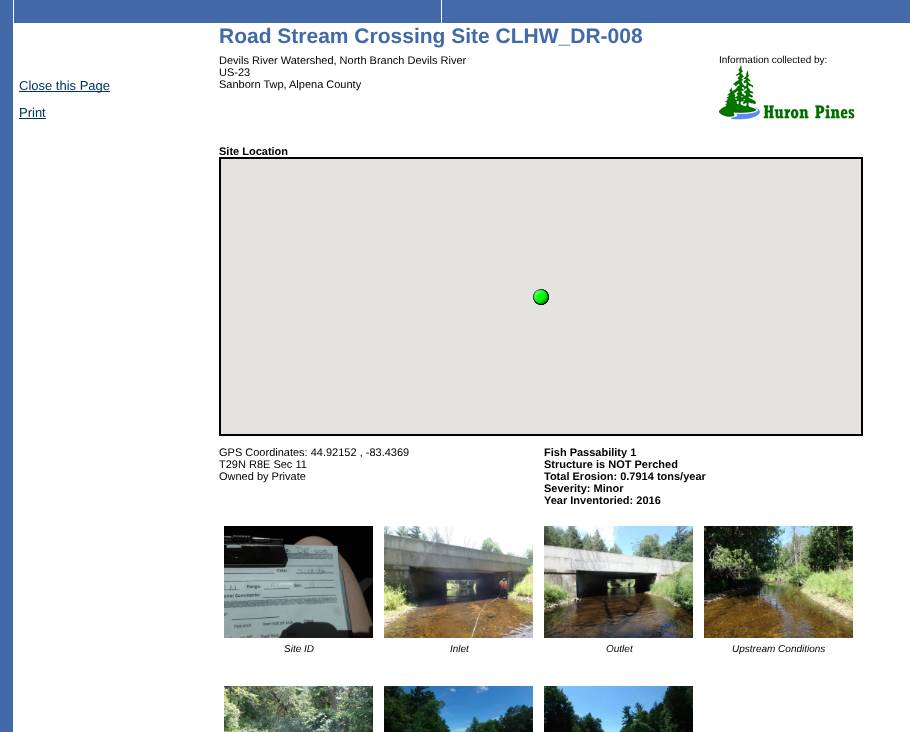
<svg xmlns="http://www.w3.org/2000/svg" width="910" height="732">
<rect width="100%" height="100%" fill="#fff"/>
<rect x="6.5" y="-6.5" width="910" height="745" fill="none" stroke="#426aa8" stroke-width="13"/>
<rect x="14" width="427" height="23" fill="#4369a8"/>
<rect x="442" width="468" height="23" fill="#456aa9"/>
<rect x="19" y="91" width="91" height="1" fill="#036"/>
<text x="19" y="90" style="font-family:Liberation Sans;font-size:13px;fill:#036">Close this Page</text>
<text x="19" y="117" style="font-family:Liberation Sans;font-size:13px;fill:#036">Print</text>
<rect x="19" y="118" width="27" height="1" fill="#036"/>
<text x="219" y="43" style="font-family:Liberation Sans;font-size:21px;font-weight:bold;fill:#426aa8">Road Stream Crossing Site CLHW_DR-008</text>
<text x="219" y="64" style="font-family:Liberation Sans;font-size:11px;fill:#000001">Devils River Watershed, North Branch Devils River</text>
<text x="219" y="76" style="font-family:Liberation Sans;font-size:11px;fill:#000001">US-23</text>
<text x="219" y="88" style="font-family:Liberation Sans;font-size:11px;fill:#000001">Sanborn Twp,</text>
<text x="289" y="88" style="font-family:Liberation Sans;font-size:11px;fill:#000001">Alpena County</text>
<text x="719" y="63" style="font-family:Liberation Sans;font-size:10px;fill:#000001">Information collected by:</text>
<image x="719" y="65" width="136" height="55" href="media/1.png"/>
<text x="219" y="155" style="font-family:Liberation Sans;font-size:11px;font-weight:bold;fill:#000001">Site Location</text>
<rect x="220" y="158" width="642" height="277" fill="none" stroke="#000" stroke-width="2"/>
<rect x="221" y="159" width="640" height="275" fill="#e5e3df"/>
<image x="533" y="289" width="16" height="16" href="media/2.png"/>
<text x="219" y="456" style="font-family:Liberation Sans;font-size:11px;fill:#000001">GPS Coordinates: 44.92152 , -83.4369</text>
<text x="219" y="468" style="font-family:Liberation Sans;font-size:11px;fill:#000001">T29N R8E Sec 11</text>
<text x="219" y="480" style="font-family:Liberation Sans;font-size:11px;fill:#000001">Owned by Private</text>
<text x="544" y="456" style="font-family:Liberation Sans;font-size:11px;font-weight:bold;fill:#000001">Fish Passability 1</text>
<text x="544" y="468" style="font-family:Liberation Sans;font-size:11px;font-weight:bold;fill:#000001">Structure is NOT Perched</text>
<text x="544" y="480" style="font-family:Liberation Sans;font-size:11px;font-weight:bold;fill:#000001">Total Erosion: 0.7914 tons/year</text>
<text x="544" y="492" style="font-family:Liberation Sans;font-size:11px;font-weight:bold;fill:#000001">Severity: Minor</text>
<text x="544" y="504" style="font-family:Liberation Sans;font-size:11px;font-weight:bold;fill:#000001">Year Inventoried: 2016</text>
<image x="224" y="526" width="149" height="112" href="media/3.png"/>
<text x="284" y="652" style="font-family:Liberation Sans;font-size:10px;font-style:italic;fill:#000001">Site ID</text>
<image x="384" y="526" width="149" height="112" href="media/4.png"/>
<text x="450" y="652" style="font-family:Liberation Sans;font-size:10px;font-style:italic;fill:#000001">Inlet</text>
<image x="544" y="526" width="149" height="112" href="media/5.png"/>
<text x="606" y="652" style="font-family:Liberation Sans;font-size:10px;font-style:italic;fill:#000001">Outlet</text>
<image x="704" y="526" width="149" height="112" href="media/6.png"/>
<text x="732" y="652" style="font-family:Liberation Sans;font-size:10px;font-style:italic;fill:#000001">Upstream Conditions</text>
<image x="224" y="686" width="149" height="46" href="media/7.png"/>
<image x="384" y="686" width="149" height="46" href="media/8.png"/>
<image x="544" y="686" width="149" height="46" href="media/9.png"/>
</svg>
